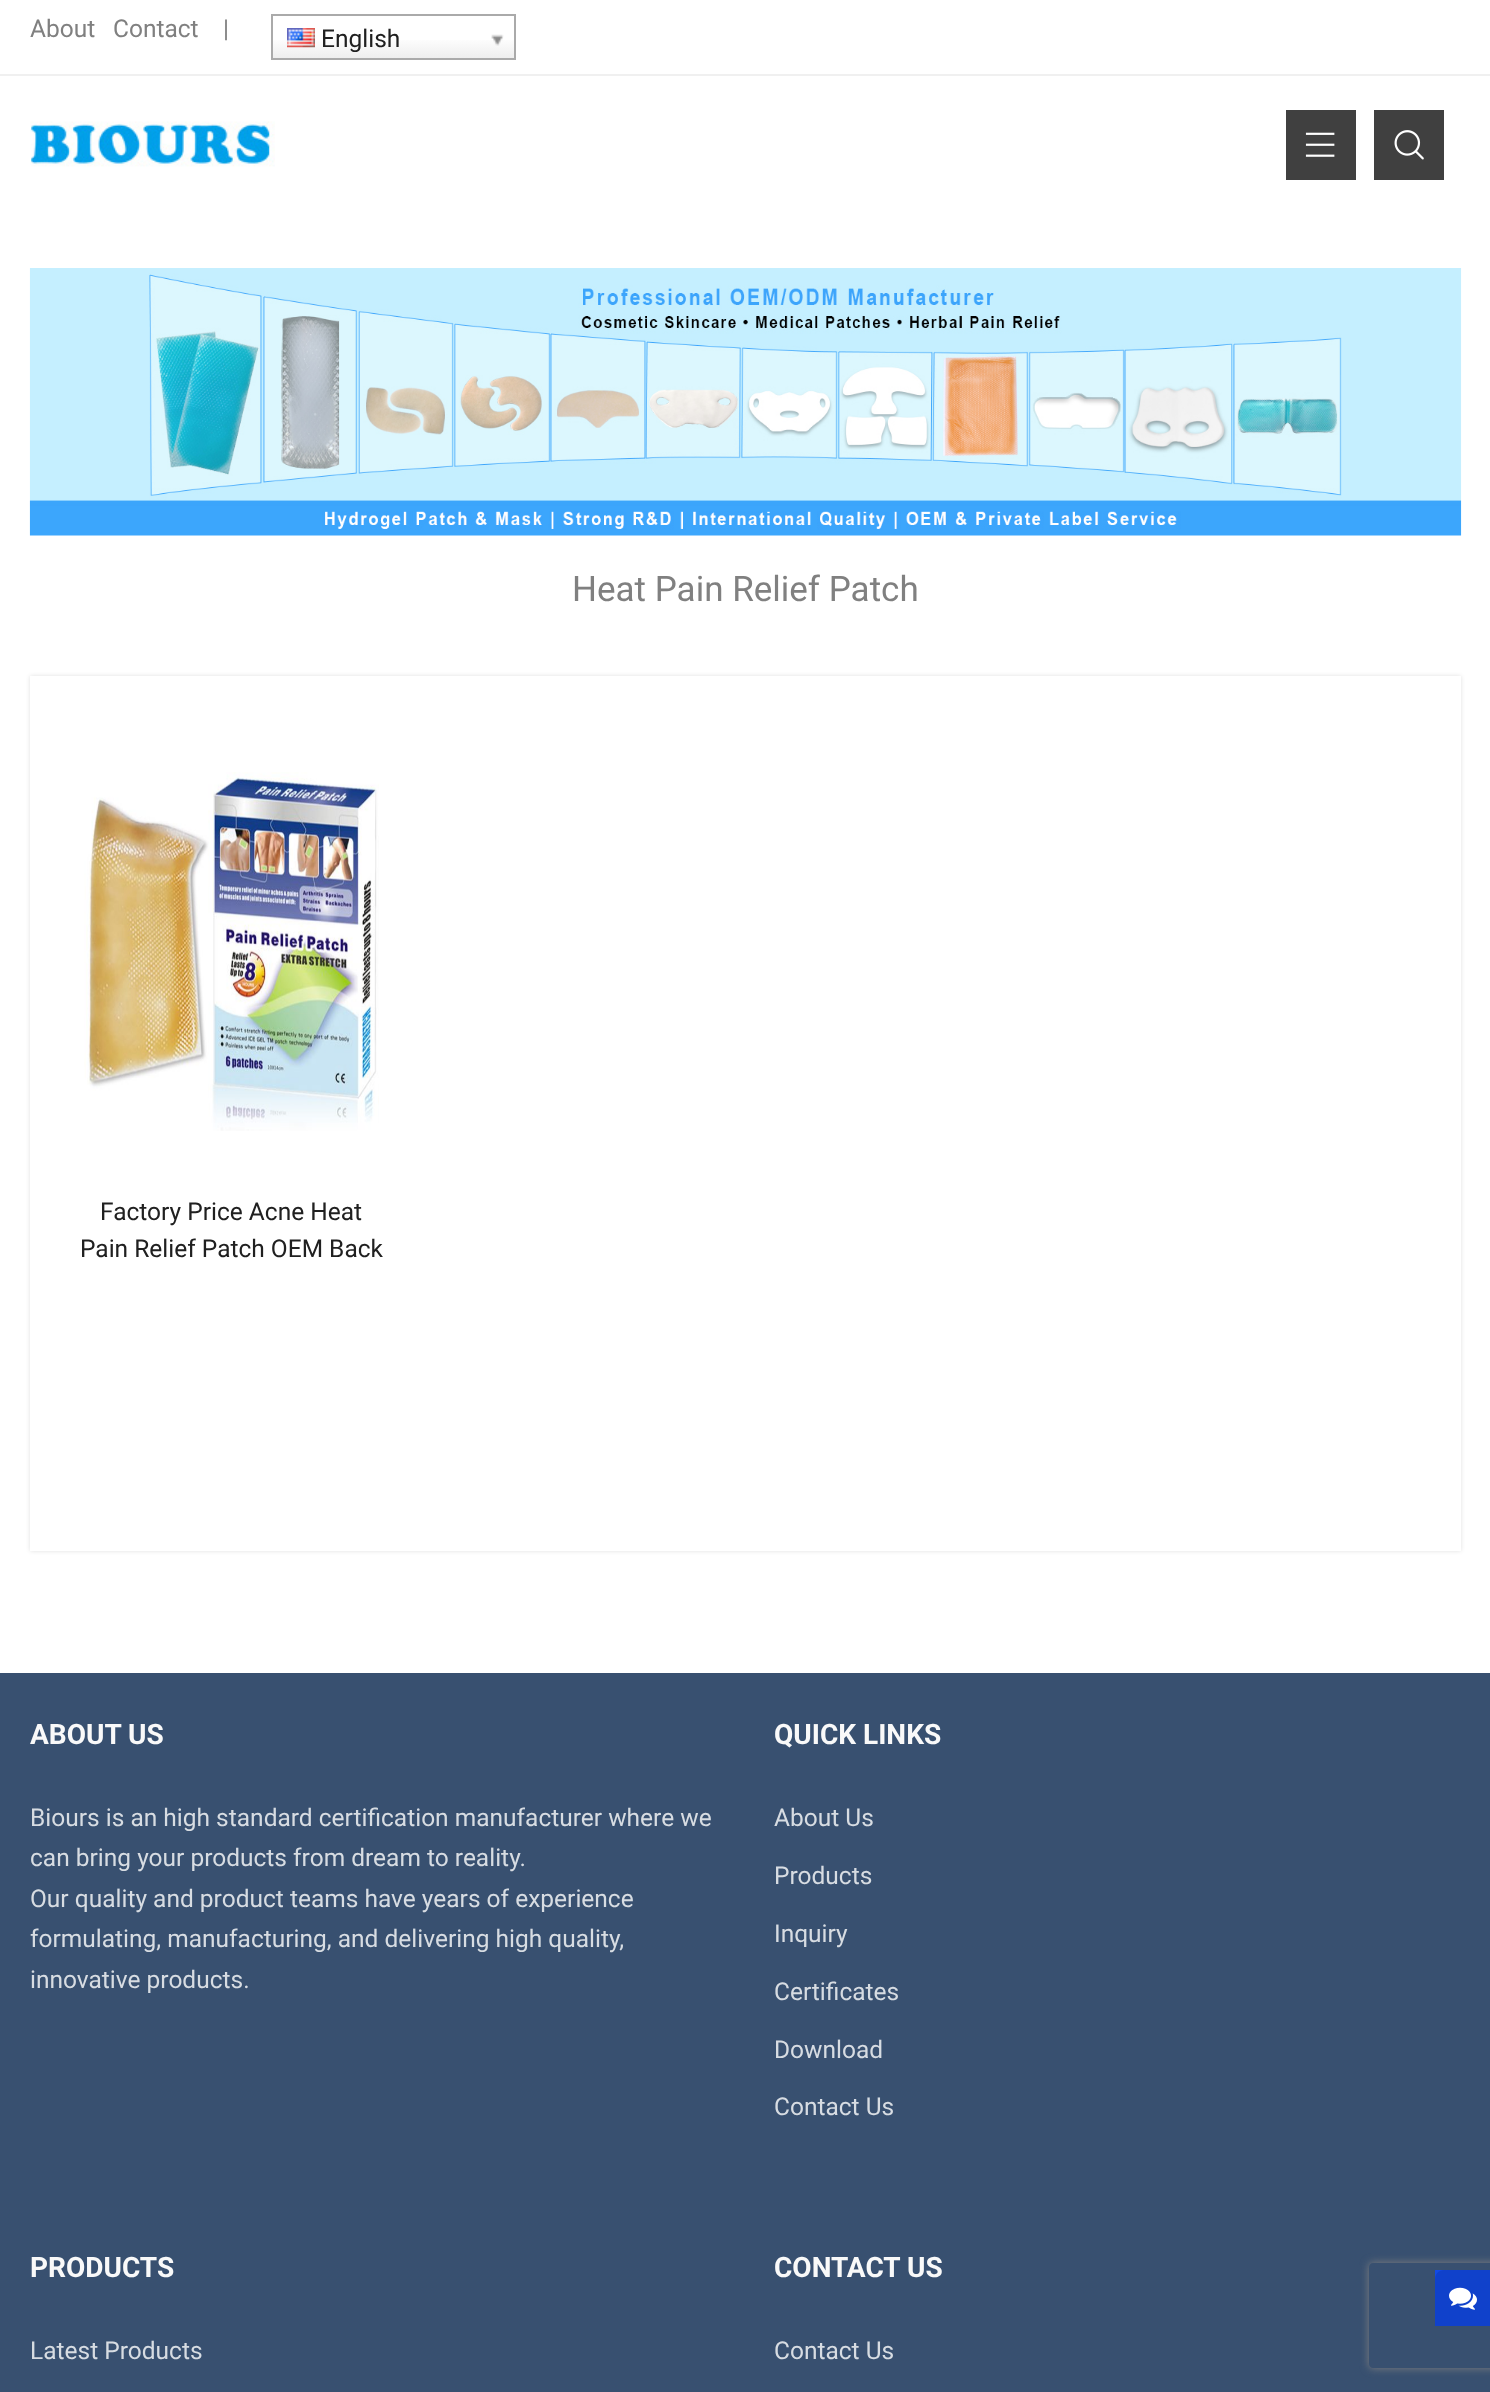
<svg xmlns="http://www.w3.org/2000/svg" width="1490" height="2392">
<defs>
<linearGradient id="g1" gradientUnits="userSpaceOnUse" x1="273" y1="58" x2="273" y2="16"><stop offset="0" stop-color="#eee"/><stop offset="0.5" stop-color="#fff"/></linearGradient>
<clipPath id="clip1"><path d="M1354 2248h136v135h-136zm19 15h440c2 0 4 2 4 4v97c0 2-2 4-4 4h-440c-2 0-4-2-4-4v-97c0-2 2-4 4-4z" clip-rule="evenodd"/></clipPath>
</defs>
<rect width="100%" height="100%" fill="#fff"/>
<rect y="74" width="1490" height="2" fill="#f0f0f0"/>
<text x="30" y="37" style="font-family:Roboto;font-size:24.5px;fill:#808080">About</text>
<text x="113" y="37" style="font-family:Roboto;font-size:24.5px;fill:#808080">Contact</text>
<text x="223" y="37" style="font-family:Roboto;font-size:24.5px;fill:#808080">|</text>
<rect x="273" y="40" width="241" height="18" fill="url(#g1)"/>
<rect x="272" y="15" width="243" height="44" fill="none" stroke="#aaa" stroke-width="2"/>
<image x="287" y="28" width="28" height="20" href="media/1.png"/>
<text x="321" y="47" style="font-family:Roboto;font-size:24.5px;fill:#202020">English</text>
<image x="491" y="34" width="13" height="12" href="media/2.png"/>
<image x="30" y="121" width="245" height="46" href="media/3.png"/>
<rect x="1286" y="110" width="70" height="70" fill="#404040"/>
<image x="1305" y="132" width="30" height="25" href="media/4.png"/>
<rect x="1374" y="110" width="70" height="70" fill="#404040"/>
<image x="1394" y="130" width="30" height="30" href="media/5.png"/>
<image x="29" y="268" width="1433" height="268" href="media/6.png"/>
<text x="572" y="601" style="font-family:Roboto;font-size:35px;fill:#808080">Heat Pain Relief Patch</text>
<rect x="30" y="676" width="1431" height="875" fill="#0000001f" filter="blur(2px)"/>
<rect x="30" y="676" width="1431" height="875" fill="#fff"/>
<image x="84" y="772" width="295" height="359" href="media/7.png"/>
<text x="100" y="1220" style="font-family:Roboto;font-size:24.5px;fill:#202020">Factory Price Acne Heat</text>
<text x="80" y="1257" style="font-family:Roboto;font-size:24.5px;fill:#202020">Pain Relief Patch OEM Back</text>
<rect y="1673" width="1490" height="719" fill="#385070"/>
<text x="30" y="1744" style="font-family:Roboto;font-size:28px;font-weight:bold;fill:#f9f9f9">ABOUT US</text>
<text x="30" y="1826" style="font-family:Roboto;font-size:24.5px;fill:#d7dce2">Biours is an high standard certification manufacturer where we</text>
<text x="30" y="1866" style="font-family:Roboto;font-size:24.5px;fill:#d7dce2">can bring your products from dream to reality.</text>
<text x="30" y="1907" style="font-family:Roboto;font-size:24.5px;fill:#d7dce2">Our quality and product teams have years of experience</text>
<text x="30" y="1947" style="font-family:Roboto;font-size:24.5px;fill:#d7dce2">formulating, manufacturing, and delivering high quality,</text>
<text x="30" y="1988" style="font-family:Roboto;font-size:24.5px;fill:#d7dce2">innovative products.</text>
<text x="774" y="1744" style="font-family:Roboto;font-size:28px;font-weight:bold;fill:#f9f9f9">QUICK LINKS</text>
<text x="774" y="1826" style="font-family:Roboto;font-size:24.5px;fill:#d7dce2">About Us</text>
<text x="774" y="1884" style="font-family:Roboto;font-size:24.5px;fill:#d7dce2">Products</text>
<text x="774" y="1942" style="font-family:Roboto;font-size:24.5px;fill:#d7dce2">Inquiry</text>
<text x="774" y="2000" style="font-family:Roboto;font-size:24.5px;fill:#d7dce2">Certificates</text>
<text x="774" y="2058" style="font-family:Roboto;font-size:24.5px;fill:#d7dce2">Download</text>
<text x="774" y="2115" style="font-family:Roboto;font-size:24.5px;fill:#d7dce2">Contact Us</text>
<text x="30" y="2277" style="font-family:Roboto;font-size:28px;font-weight:bold;fill:#f9f9f9">PRODUCTS</text>
<text x="30" y="2359" style="font-family:Roboto;font-size:24.5px;fill:#d7dce2">Latest Products</text>
<text x="774" y="2277" style="font-family:Roboto;font-size:28px;font-weight:bold;fill:#f9f9f9">CONTACT US</text>
<text x="774" y="2359" style="font-family:Roboto;font-size:24.5px;fill:#d7dce2">Contact Us</text>
<g clip-path="url(#clip1)">
<rect x="1369" y="2263" width="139" height="105" rx="4" fill="#808080" filter="blur(4.5px)"/>
</g>
<rect x="1435" y="2270" width="9" height="9" fill="#124ae7"/>
<path d="M1444 2270h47v56h-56v-47c0-5 4-9 9-9z" fill="#1041cb"/>
<image x="1449" y="2287" width="28" height="23" href="media/8.png"/>
</svg>
